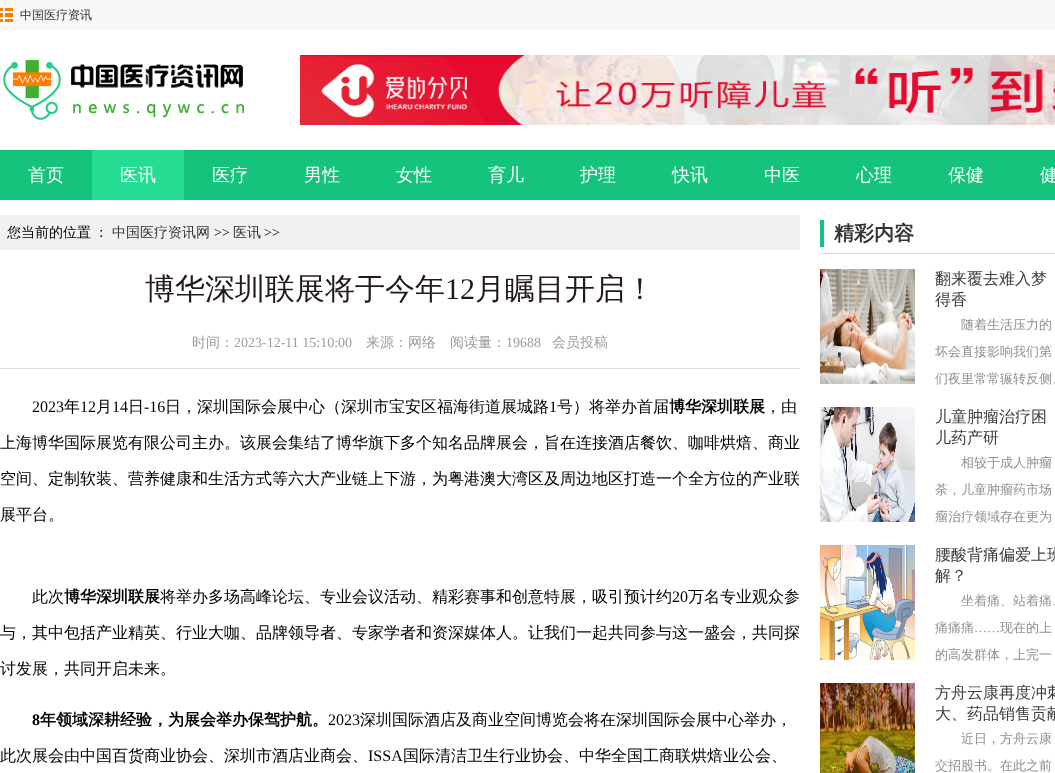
<svg xmlns="http://www.w3.org/2000/svg" width="1055" height="773">
<rect width="100%" height="100%" fill="#fff"/>
<rect width="1055" height="30" fill="#f7f7f7"/>
<image x="0" y="8" width="13" height="14" href="media/1.png"/>
<text x="20" y="19" style="font-family:WenQuanYi Zen Hei;font-size:12px;font-weight:500;fill:#333">中国医疗资讯</text>
<image x="3" y="60" width="241" height="60" href="media/2.png"/>
<image x="300" y="55" width="755" height="70" href="media/3.png"/>
<rect y="150" width="1055" height="50" fill="#15c37d"/>
<text x="28" y="181" style="font-family:WenQuanYi Zen Hei;font-size:18px;font-weight:500;fill:#fff">首页</text>
<rect x="92" y="150" width="92" height="50" fill="#24dd93"/>
<text x="120" y="181" style="font-family:WenQuanYi Zen Hei;font-size:18px;font-weight:500;fill:#fff">医讯</text>
<text x="212" y="181" style="font-family:WenQuanYi Zen Hei;font-size:18px;font-weight:500;fill:#fff">医疗</text>
<text x="304" y="181" style="font-family:WenQuanYi Zen Hei;font-size:18px;font-weight:500;fill:#fff">男性</text>
<text x="396" y="181" style="font-family:WenQuanYi Zen Hei;font-size:18px;font-weight:500;fill:#fff">女性</text>
<text x="488" y="181" style="font-family:WenQuanYi Zen Hei;font-size:18px;font-weight:500;fill:#fff">育儿</text>
<text x="580" y="181" style="font-family:WenQuanYi Zen Hei;font-size:18px;font-weight:500;fill:#fff">护理</text>
<text x="672" y="181" style="font-family:WenQuanYi Zen Hei;font-size:18px;font-weight:500;fill:#fff">快讯</text>
<text x="764" y="181" style="font-family:WenQuanYi Zen Hei;font-size:18px;font-weight:500;fill:#fff">中医</text>
<text x="856" y="181" style="font-family:WenQuanYi Zen Hei;font-size:18px;font-weight:500;fill:#fff">心理</text>
<text x="948" y="181" style="font-family:WenQuanYi Zen Hei;font-size:18px;font-weight:500;fill:#fff">保健</text>
<text x="1040" y="181" style="font-family:WenQuanYi Zen Hei;font-size:18px;font-weight:500;fill:#fff">健</text>
<rect y="215" width="800" height="35" fill="#f1f1f1"/>
<text x="7" y="237" word-spacing="-1" style="font-family:WenQuanYi Zen Hei;font-size:14px;font-weight:500;fill:#000">您当前的位置 ：</text>
<text x="112" y="237" style="font-family:WenQuanYi Zen Hei;font-size:14px;font-weight:500;fill:#333">中国医疗资讯网</text>
<text x="214" y="237" style="font-family:Liberation Serif;font-size:14px;fill:#000">&gt;&gt;</text>
<text x="233" y="237" style="font-family:WenQuanYi Zen Hei;font-size:14px;font-weight:500;fill:#333">医讯</text>
<text x="264" y="237" style="font-family:Liberation Serif;font-size:14px;fill:#000">&gt;&gt;</text>
<text x="145" y="299" style="font-family:WenQuanYi Zen Hei;font-size:30px;font-weight:500;fill:#231820">博华深圳联展将于今年</text>
<text x="445" y="299" style="font-family:Liberation Serif;font-size:30px;fill:#231820">12</text>
<text x="475" y="299" style="font-family:WenQuanYi Zen Hei;font-size:30px;font-weight:500;fill:#231820">月瞩目开启！</text>
<rect y="368" width="800" height="1" fill="#ddd"/>
<text x="192" y="347" style="font-family:WenQuanYi Zen Hei;font-size:14px;font-weight:500;fill:#9d9d9d">时间：</text>
<text x="234" y="347" style="font-family:Liberation Serif;font-size:14px;fill:#9d9d9d">2023-12-11 15:10:00</text>
<text x="366" y="347" style="font-family:WenQuanYi Zen Hei;font-size:14px;font-weight:500;fill:#9d9d9d">来源：网络</text>
<text x="450" y="347" style="font-family:WenQuanYi Zen Hei;font-size:14px;font-weight:500;fill:#9d9d9d">阅读量：</text>
<text x="506" y="347" style="font-family:Liberation Serif;font-size:14px;fill:#9d9d9d">19688</text>
<text x="552" y="347" style="font-family:WenQuanYi Zen Hei;font-size:14px;font-weight:500;fill:#9d9d9d">会员投稿</text>
<text x="32" y="412" style="font-family:Liberation Serif;font-size:16px;fill:#000">2023</text>
<text x="64" y="412" style="font-family:WenQuanYi Zen Hei;font-size:16px;font-weight:500;fill:#000">年</text>
<text x="80" y="412" style="font-family:Liberation Serif;font-size:16px;fill:#000">12</text>
<text x="96" y="412" style="font-family:WenQuanYi Zen Hei;font-size:16px;font-weight:500;fill:#000">月</text>
<text x="112" y="412" style="font-family:Liberation Serif;font-size:16px;fill:#000">14</text>
<text x="128" y="412" style="font-family:WenQuanYi Zen Hei;font-size:16px;font-weight:500;fill:#000">日</text>
<text x="144" y="412" style="font-family:Liberation Serif;font-size:16px;fill:#000">-16</text>
<text x="165" y="412" style="font-family:WenQuanYi Zen Hei;font-size:16px;font-weight:500;fill:#000">日，深圳国际会展中心（深圳市宝安区福海街道展城路</text>
<text x="549" y="412" style="font-family:Liberation Serif;font-size:16px;fill:#000">1</text>
<text x="557" y="412" style="font-family:WenQuanYi Zen Hei;font-size:16px;font-weight:500;fill:#000">号）将举办首届</text>
<text x="669" y="412" style="font-family:WenQuanYi Zen Hei;font-size:16px;font-weight:bold;fill:#000">博华深圳联展</text>
<text x="765" y="412" style="font-family:WenQuanYi Zen Hei;font-size:16px;font-weight:500;fill:#000">，由</text>
<text x="0" y="448" style="font-family:WenQuanYi Zen Hei;font-size:16px;font-weight:500;fill:#000">上海博华国际展览有限公司主办。该展会集结了博华旗下多个知名品牌展会，旨在连接酒店餐饮、咖啡烘焙、商业</text>
<text x="0" y="484" style="font-family:WenQuanYi Zen Hei;font-size:16px;font-weight:500;fill:#000">空间、定制软装、营养健康和生活方式等六大产业链上下游，为粤港澳大湾区及周边地区打造一个全方位的产业联</text>
<text x="0" y="520" style="font-family:WenQuanYi Zen Hei;font-size:16px;font-weight:500;fill:#000">展平台。</text>
<text x="32" y="602" style="font-family:WenQuanYi Zen Hei;font-size:16px;font-weight:500;fill:#000">此次</text>
<text x="64" y="602" style="font-family:WenQuanYi Zen Hei;font-size:16px;font-weight:bold;fill:#000">博华深圳联展</text>
<text x="160" y="602" style="font-family:WenQuanYi Zen Hei;font-size:16px;font-weight:500;fill:#000">将举办多场高峰论坛、专业会议活动、精彩赛事和创意特展，吸引预计约</text>
<text x="672" y="602" style="font-family:Liberation Serif;font-size:16px;fill:#000">20</text>
<text x="688" y="602" style="font-family:WenQuanYi Zen Hei;font-size:16px;font-weight:500;fill:#000">万名专业观众参</text>
<text x="0" y="638" style="font-family:WenQuanYi Zen Hei;font-size:16px;font-weight:500;fill:#000">与，其中包括产业精英、行业大咖、品牌领导者、专家学者和资深媒体人。让我们一起共同参与这一盛会，共同探</text>
<text x="0" y="674" style="font-family:WenQuanYi Zen Hei;font-size:16px;font-weight:500;fill:#000">讨发展，共同开启未来。</text>
<text x="32" y="725" style="font-family:Liberation Serif;font-size:16px;font-weight:bold;fill:#000">8</text>
<text x="40" y="725" style="font-family:WenQuanYi Zen Hei;font-size:16px;font-weight:bold;fill:#000">年领域深耕经验，为展会举办保驾护航。</text>
<text x="328" y="725" style="font-family:Liberation Serif;font-size:16px;fill:#000">2023</text>
<text x="360" y="725" style="font-family:WenQuanYi Zen Hei;font-size:16px;font-weight:500;fill:#000">深圳国际酒店及商业空间博览会将在深圳国际会展中心举办，</text>
<text x="0" y="761" style="font-family:WenQuanYi Zen Hei;font-size:16px;font-weight:500;fill:#000">此次展会由中国百货商业协会、深圳市酒店业商会、</text>
<text x="368" y="761" style="font-family:Liberation Serif;font-size:16px;fill:#000">ISSA</text>
<text x="403" y="761" style="font-family:WenQuanYi Zen Hei;font-size:16px;font-weight:500;fill:#000">国际清洁卫生行业协会、中华全国工商联烘焙业公会、</text>
<rect x="820" y="253" width="235" height="1" fill="#ddd"/>
<rect x="887" y="233" width="27" height="2" fill="#e9e9e9"/>
<rect x="820" y="220" width="4" height="27" fill="#15c37d"/>
<text x="834" y="240" style="font-family:WenQuanYi Zen Hei;font-size:20px;font-weight:bold;fill:#333">精彩内容</text>
<image x="820" y="269" width="95" height="115" href="media/4.png"/>
<text x="935" y="284" word-spacing="-1" style="font-family:WenQuanYi Zen Hei;font-size:16px;font-weight:500;fill:#3d3d3d">翻来覆去难入梦</text>
<text x="935" y="305" style="font-family:WenQuanYi Zen Hei;font-size:16px;font-weight:500;fill:#3d3d3d">得香</text>
<text x="961" y="329" style="font-family:WenQuanYi Zen Hei;font-size:13px;font-weight:500;fill:#8f8f8f">随着生活压力的</text>
<text x="935" y="356" style="font-family:WenQuanYi Zen Hei;font-size:13px;font-weight:500;fill:#8f8f8f">坏会直接影响我们第</text>
<text x="935" y="383" style="font-family:WenQuanYi Zen Hei;font-size:13px;font-weight:500;fill:#8f8f8f">们夜里常常辗转反侧、</text>
<image x="820" y="407" width="95" height="115" href="media/5.png"/>
<text x="935" y="422" style="font-family:WenQuanYi Zen Hei;font-size:16px;font-weight:500;fill:#3d3d3d">儿童肿瘤治疗困</text>
<text x="935" y="443" style="font-family:WenQuanYi Zen Hei;font-size:16px;font-weight:500;fill:#3d3d3d">儿药产研</text>
<text x="961" y="467" style="font-family:WenQuanYi Zen Hei;font-size:13px;font-weight:500;fill:#8f8f8f">相较于成人肿瘤</text>
<text x="935" y="494" style="font-family:WenQuanYi Zen Hei;font-size:13px;font-weight:500;fill:#8f8f8f">荼，儿童肿瘤药市场</text>
<text x="935" y="521" style="font-family:WenQuanYi Zen Hei;font-size:13px;font-weight:500;fill:#8f8f8f">瘤治疗领域存在更为</text>
<image x="820" y="545" width="95" height="115" href="media/6.png"/>
<text x="935" y="560" style="font-family:WenQuanYi Zen Hei;font-size:16px;font-weight:500;fill:#3d3d3d">腰酸背痛偏爱上班</text>
<text x="935" y="581" style="font-family:WenQuanYi Zen Hei;font-size:16px;font-weight:500;fill:#3d3d3d">解？</text>
<text x="961" y="605" style="font-family:WenQuanYi Zen Hei;font-size:13px;font-weight:500;fill:#8f8f8f">坐着痛、站着痛、</text>
<text x="935" y="632" style="font-family:WenQuanYi Zen Hei;font-size:13px;font-weight:500;fill:#8f8f8f">痛痛痛</text>
<text x="974" y="632" style="font-family:Liberation Serif;font-size:13px;fill:#8f8f8f">……</text>
<text x="1000" y="632" style="font-family:WenQuanYi Zen Hei;font-size:13px;font-weight:500;fill:#8f8f8f">现在的上</text>
<text x="935" y="659" style="font-family:WenQuanYi Zen Hei;font-size:13px;font-weight:500;fill:#8f8f8f">的高发群体，上完一</text>
<image x="820" y="683" width="95" height="90" href="media/7.png"/>
<text x="935" y="698" style="font-family:WenQuanYi Zen Hei;font-size:16px;font-weight:500;fill:#3d3d3d">方舟云康再度冲刺</text>
<text x="935" y="719" style="font-family:WenQuanYi Zen Hei;font-size:16px;font-weight:500;fill:#3d3d3d">大、药品销售贡献</text>
<text x="961" y="743" style="font-family:WenQuanYi Zen Hei;font-size:13px;font-weight:500;fill:#8f8f8f">近日，方舟云康</text>
<text x="935" y="770" style="font-family:WenQuanYi Zen Hei;font-size:13px;font-weight:500;fill:#8f8f8f">交招股书。在此之前</text>
</svg>
